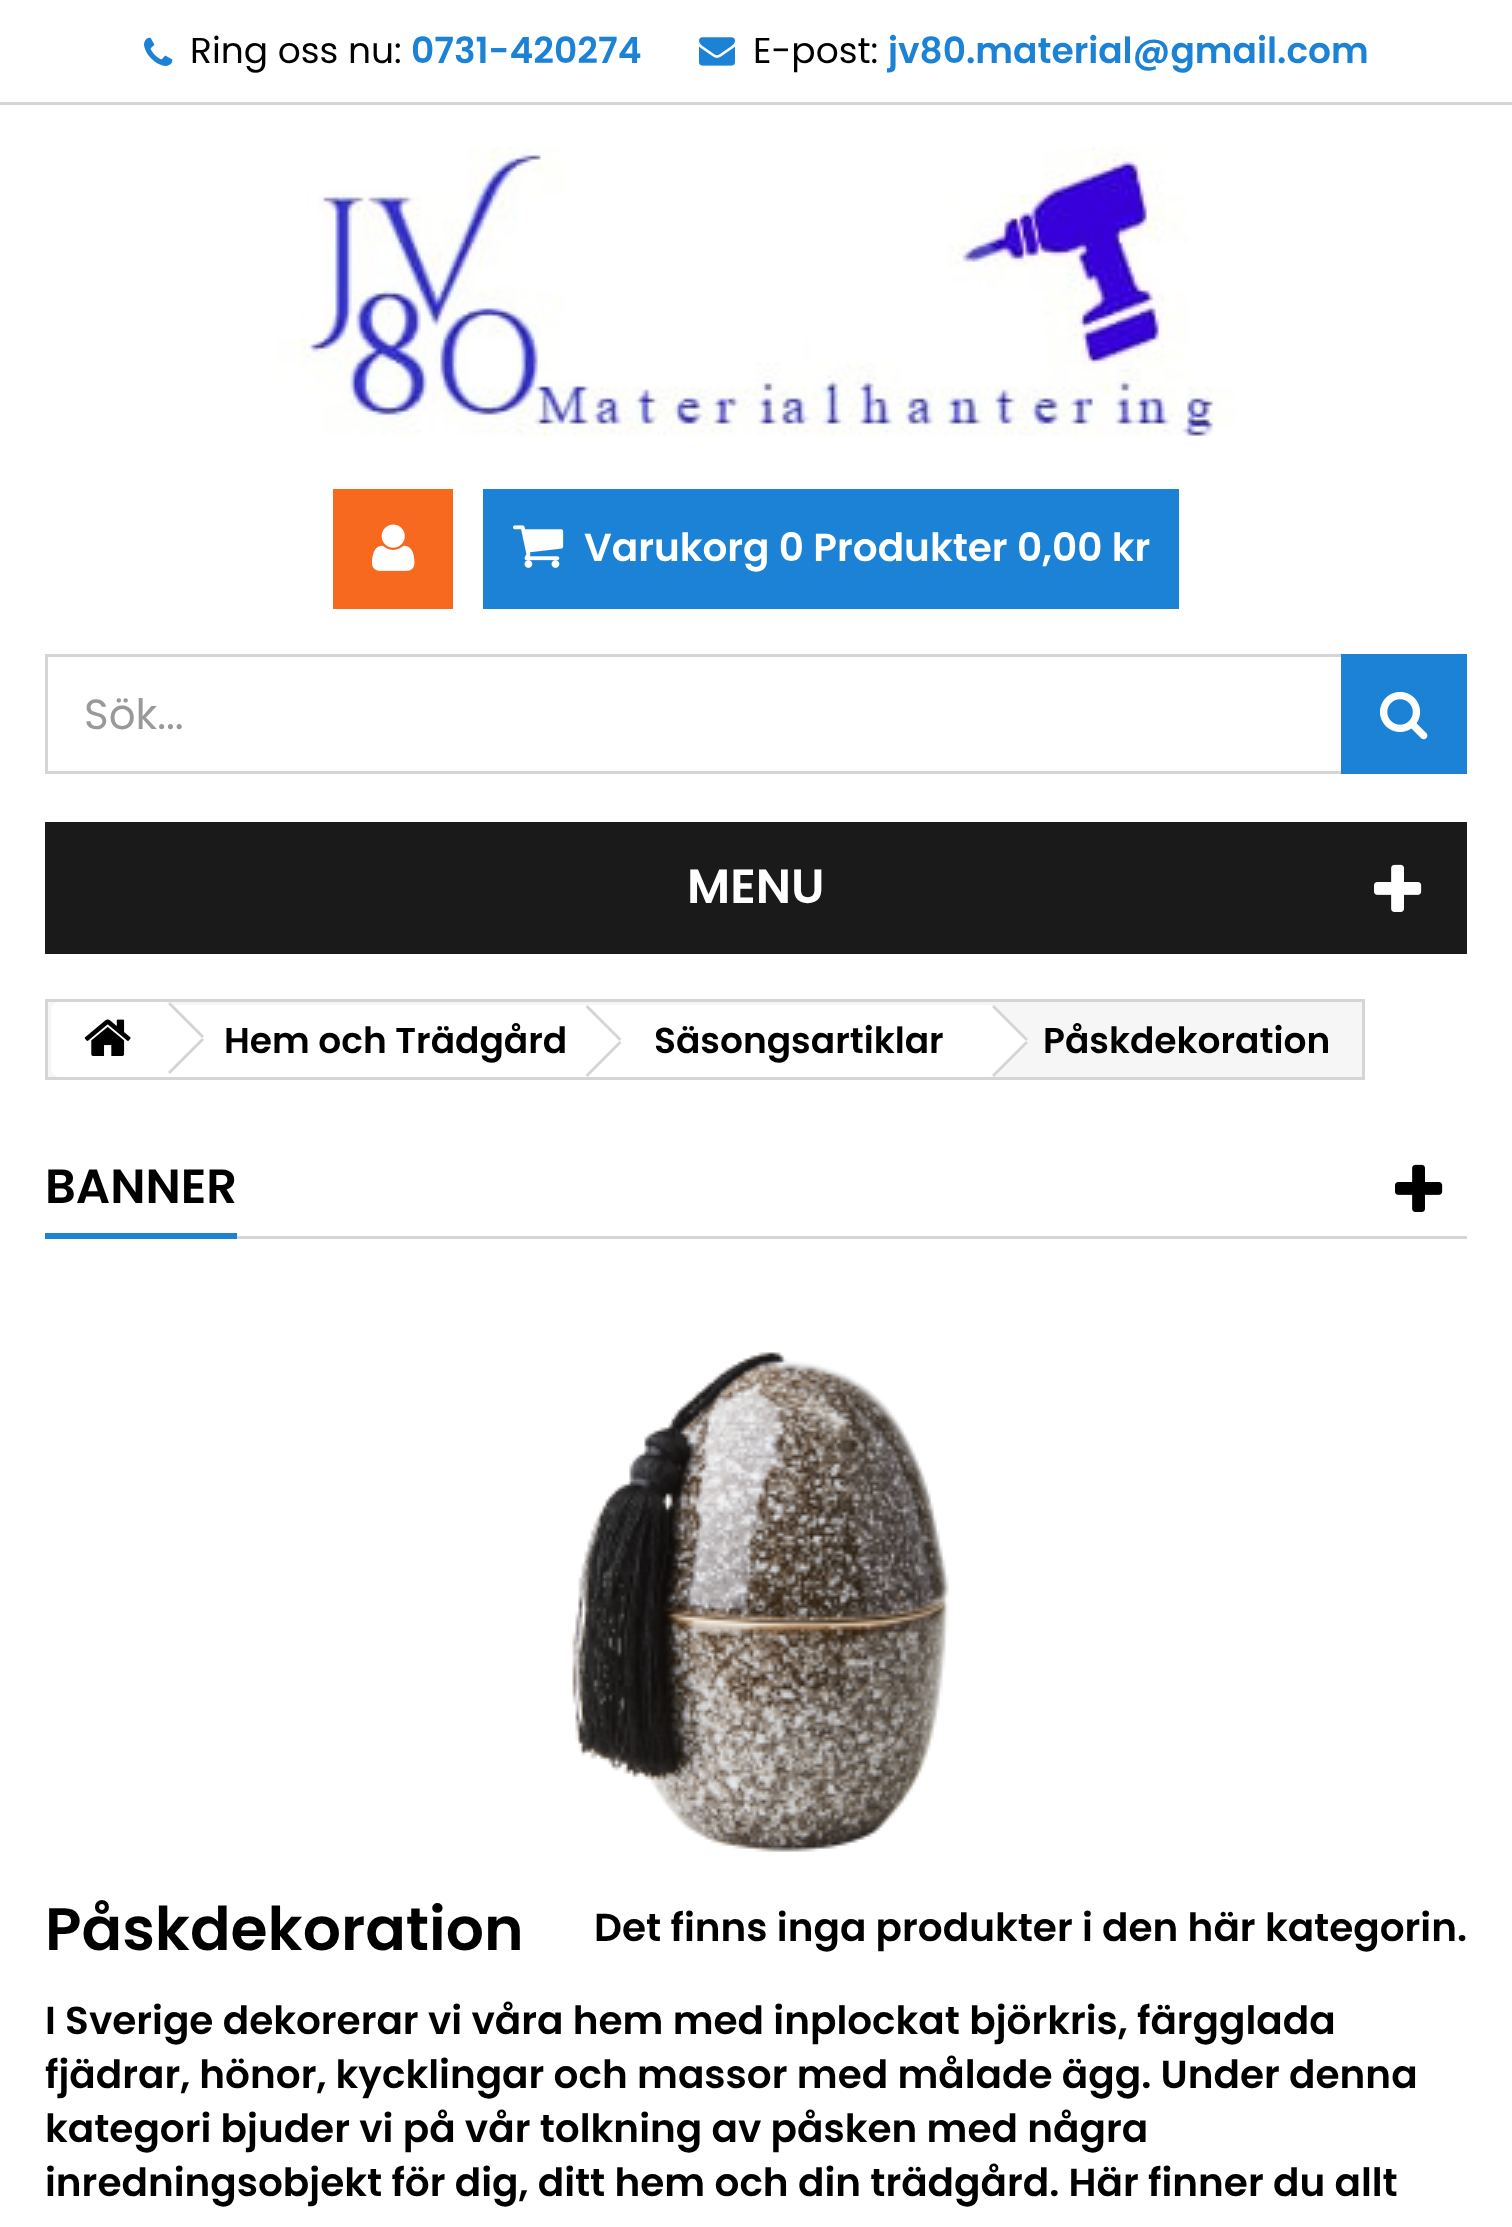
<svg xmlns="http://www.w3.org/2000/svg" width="1512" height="2227">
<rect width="100%" height="100%" fill="#fff"/>
<rect y="102" width="1512" height="3" fill="#d6d4d4"/>
<image x="144" y="37" width="29" height="29" href="media/1.png"/>
<text x="190" y="63" style="font-family:Poppins;font-size:36px;fill:#000">Ring oss nu:</text>
<text x="411" y="63" style="font-family:Poppins;font-size:36px;font-weight:600;fill:#1b82d6">0731-420274</text>
<image x="699" y="37" width="36" height="29" href="media/2.png"/>
<text x="753" y="63" style="font-family:Poppins;font-size:36px;fill:#000">E-post:</text>
<text x="888" y="63" style="font-family:Poppins;font-size:36px;font-weight:600;fill:#1b82d6">jv80.material@gmail.com</text>
<image x="276" y="147" width="960" height="289" href="media/3.png"/>
<rect x="333" y="489" width="120" height="120" fill="#f6691e"/>
<image x="372" y="524" width="43" height="47" href="media/4.png"/>
<rect x="483" y="489" width="696" height="120" fill="#1b82d6"/>
<image x="513" y="525" width="51" height="43" href="media/5.png"/>
<text x="584" y="561" style="font-family:Poppins;font-size:39px;font-weight:600;fill:#fff">Varukorg 0 Produkter 0,00 kr</text>
<rect x="46.5" y="655.5" width="1419" height="117" fill="none" stroke="#d6d4d4" stroke-width="3"/>
<text x="84" y="729" style="font-family:Poppins;font-size:42px;fill:#999">Sök...</text>
<rect x="1341" y="654" width="126" height="120" fill="#1b82d6"/>
<image x="1380" y="691" width="48" height="49" href="media/6.png"/>
<rect x="45" y="822" width="1422" height="132" fill="#1b1a1b"/>
<text x="687" y="903" style="font-family:Poppins;font-size:48px;font-weight:600;fill:#fff">MENU</text>
<image x="1374" y="864" width="48" height="48" href="media/7.png"/>
<rect x="46.5" y="1000.5" width="1317" height="78" fill="#f6f6f6" stroke="#d6d4d4" stroke-width="3"/>
<path d="M60 1002h105v75h-105c-5 0-9-4-9-9v-57c0-5 4-9 9-9z" fill="#fff"/>
<image x="84" y="1019" width="47" height="37" href="media/8.png"/>
<rect x="165" y="1005" width="423" height="72" fill="#fff"/>
<path d="M172 1004l30 30c2 2 2 6 0 8l-30 30c-2 2-6 2-8 0l-30-30c-2-2-2-6 0-8l30-30c2-2 6-2 8 0z" fill="#fff"/>
<path d="M170 1002l34 34l-2 2l-34-34z" fill="#d6d4d4"/>
<path d="M202 1038l2 2l-34 34l-2-2z" fill="#d6d4d4"/>
<text x="224" y="1053" style="font-family:Poppins;font-size:36px;font-weight:600;fill:#000">Hem och Trädgård</text>
<path d="M620 1007l29 30c3 2 3 6 0 8l-29 30c-3 2-6 2-9 0l-30-30c-2-2-2-6 0-8l30-30c3-2 6-2 9 0z" fill="#fff"/>
<rect x="588" y="1005" width="402" height="72" fill="#fff"/>
<path d="M587.5 1005l34 34l-2 2l-34-34z" fill="#d6d4d4"/>
<path d="M619.5 1041l2 2l-34 34l-2-2z" fill="#d6d4d4"/>
<text x="654" y="1053" style="font-family:Poppins;font-size:36px;font-weight:600;fill:#000">Säsongsartiklar</text>
<path d="M996 1007l30 30c2 2 2 6 0 8l-30 30c-2 2-6 2-8 0l-30-30c-2-2-2-6 0-8l30-30c2-2 6-2 8 0z" fill="#fff"/>
<path d="M994 1005l34 34l-2 2l-34-34z" fill="#d6d4d4"/>
<path d="M1026 1041l2 2l-34 34l-2-2z" fill="#d6d4d4"/>
<text x="1043" y="1053" style="font-family:Poppins;font-size:36px;font-weight:600;fill:#000">Påskdekoration</text>
<rect x="237" y="1236" width="1230" height="3" fill="#d6d4d4"/>
<rect x="45" y="1233" width="192" height="6" fill="#1b82d6"/>
<text x="45" y="1203" style="font-family:Poppins;font-size:48px;font-weight:600;fill:#000">BANNER</text>
<image x="1395" y="1164" width="48" height="48" href="media/9.png"/>
<image x="572" y="1352" width="377" height="500" href="media/10.png"/>
<text x="45" y="1950" style="font-family:Poppins;font-size:60px;font-weight:600;fill:#000">Påskdekoration</text>
<text x="594" y="1941" style="font-family:Poppins;font-size:39px;font-weight:600;fill:#000">Det finns inga produkter i den här kategorin.</text>
<text x="45" y="2034" style="font-family:Poppins;font-size:39px;font-weight:600;fill:#000">I Sverige dekorerar vi våra hem med inplockat björkris, färgglada</text>
<text x="45" y="2088" style="font-family:Poppins;font-size:39px;font-weight:600;fill:#000">fjädrar, hönor, kycklingar och massor med målade ägg. Under denna</text>
<text x="45" y="2142" style="font-family:Poppins;font-size:39px;font-weight:600;fill:#000">kategori bjuder vi på vår tolkning av påsken med några</text>
<text x="45" y="2196" style="font-family:Poppins;font-size:39px;font-weight:600;fill:#000">inredningsobjekt för dig, ditt hem och din trädgård. Här finner du allt</text>
</svg>
